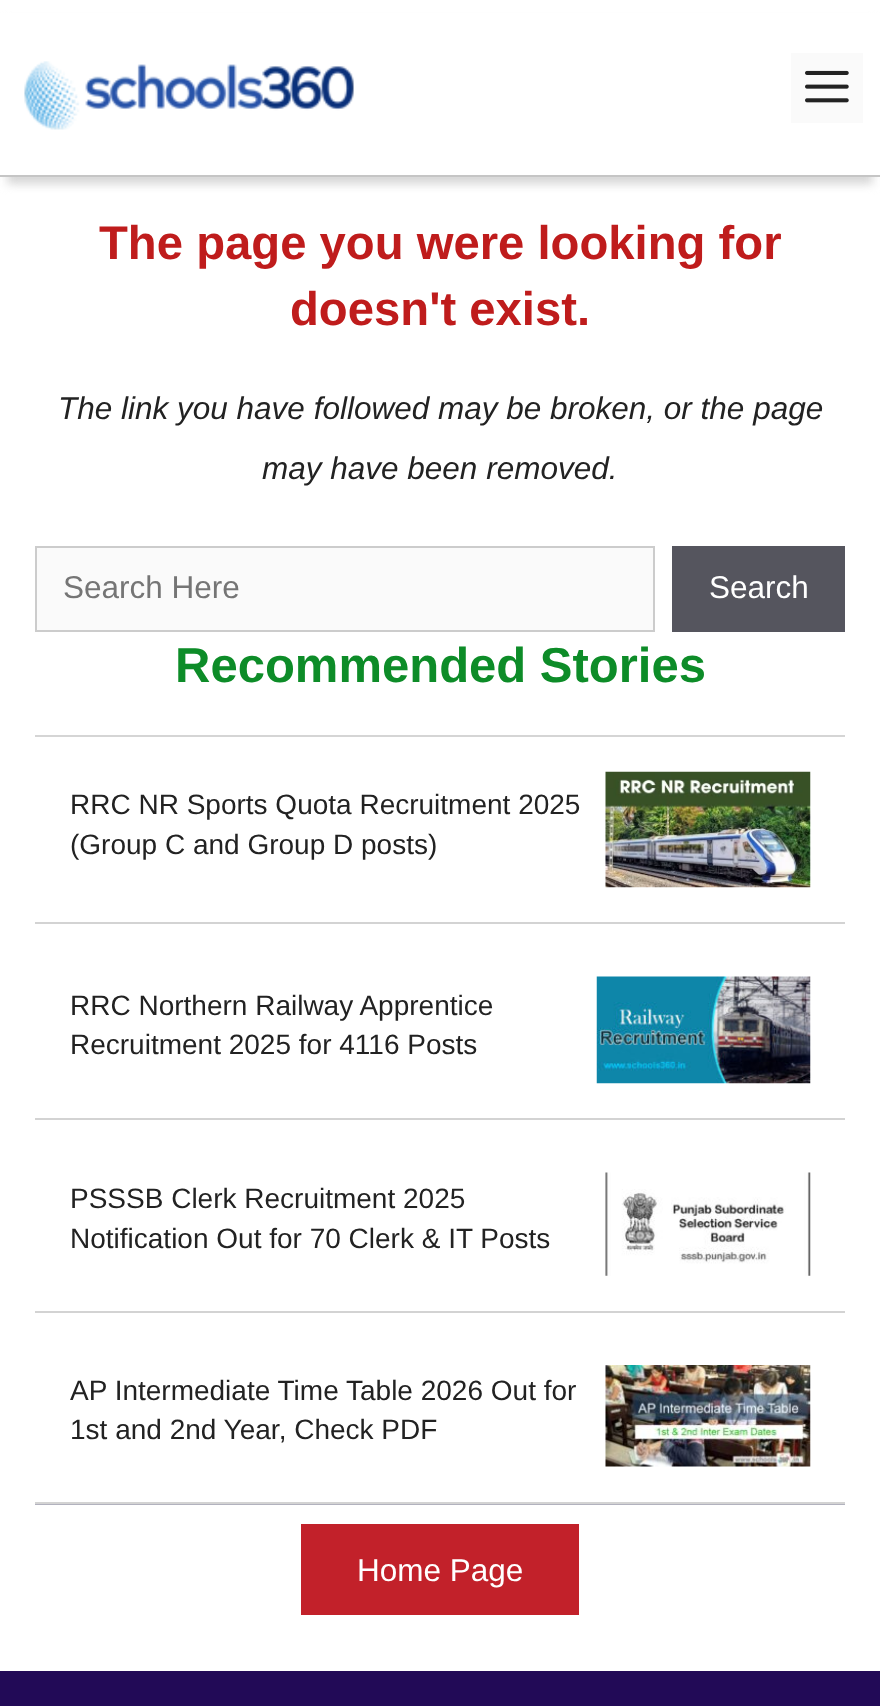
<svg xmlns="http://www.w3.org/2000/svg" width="880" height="1706">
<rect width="100%" height="100%" fill="#fff"/>
<rect x="7" y="21" width="866" height="163" fill="#d6d6d6" filter="blur(5px)"/>
<rect y="13" width="880" height="162" fill="#fff"/>
<rect y="175" width="880" height="2" fill="#c5c5c5"/>
<image x="24" y="61" width="330" height="69" href="media/1.png"/>
<rect x="791" y="53" width="72" height="70" fill="#fafafa"/>
<image x="805" y="70" width="44" height="33" href="media/2.png"/>
<text x="99" y="259" style="font-family:Liberation Sans;font-size:47.25px;font-weight:bold;fill:#bf1c1c">The page you were looking for</text>
<text x="290" y="325" style="font-family:Liberation Sans;font-size:47.25px;font-weight:bold;fill:#bf1c1c">doesn't exist.</text>
<text x="58" y="419" style="font-family:Liberation Sans;font-size:31.5px;font-style:italic;fill:#222">The link you have followed may be broken, or the page</text>
<text x="262" y="479" style="font-family:Liberation Sans;font-size:31.5px;font-style:italic;fill:#222">may have been removed.</text>
<rect x="36" y="547" width="618" height="84" fill="#fafafa" stroke="#ccc" stroke-width="2"/>
<text x="63" y="598" style="font-family:Liberation Sans;font-size:31.5px;fill:#757575">Search Here</text>
<rect x="672" y="546" width="173" height="86" fill="#55555e"/>
<text x="709" y="598" style="font-family:Liberation Sans;font-size:31.5px;fill:#fff">Search</text>
<text x="175" y="682" style="font-family:Liberation Sans;font-size:49px;font-weight:bold;fill:#0d8c28">Recommended Stories</text>
<rect x="35" y="735" width="810" height="2" fill="#d5d5d5"/>
<rect x="35" y="1504" width="810" height="1" fill="#b2b2be"/>
<rect x="35" y="922" width="810" height="2" fill="#d3d3d3"/>
<text x="70" y="814" style="font-family:Liberation Sans;font-size:28px;fill:#222">RRC NR Sports Quota Recruitment 2025</text>
<text x="70" y="854" style="font-family:Liberation Sans;font-size:28px;fill:#222">(Group C and Group D posts)</text>
<image x="605" y="771" width="206" height="117" href="media/3.png"/>
<rect x="35" y="1118" width="810" height="2" fill="#d3d3d3"/>
<text x="70" y="1015" style="font-family:Liberation Sans;font-size:28px;fill:#222">RRC Northern Railway Apprentice</text>
<text x="70" y="1054" style="font-family:Liberation Sans;font-size:28px;fill:#222">Recruitment 2025 for 4116 Posts</text>
<image x="596" y="976" width="215" height="108" href="media/4.png"/>
<rect x="35" y="1311" width="810" height="2" fill="#d3d3d3"/>
<text x="70" y="1208" style="font-family:Liberation Sans;font-size:28px;fill:#222">PSSSB Clerk Recruitment 2025</text>
<text x="70" y="1248" style="font-family:Liberation Sans;font-size:28px;fill:#222">Notification Out for 70 Clerk &amp; IT Posts</text>
<image x="605" y="1172" width="206" height="104" href="media/5.png"/>
<rect x="35" y="1502" width="810" height="2" fill="#d3d3d3"/>
<text x="70" y="1400" style="font-family:Liberation Sans;font-size:28px;fill:#222">AP Intermediate Time Table 2026 Out for</text>
<text x="70" y="1439" style="font-family:Liberation Sans;font-size:28px;fill:#222">1st and 2nd Year, Check PDF</text>
<image x="605" y="1365" width="206" height="102" href="media/6.png"/>
<rect x="301" y="1524" width="278" height="91" fill="#c2212a"/>
<text x="357" y="1581" style="font-family:Liberation Sans;font-size:31.5px;fill:#fff">Home Page</text>
<rect y="1671" width="880" height="35" fill="#220a57"/>
</svg>
